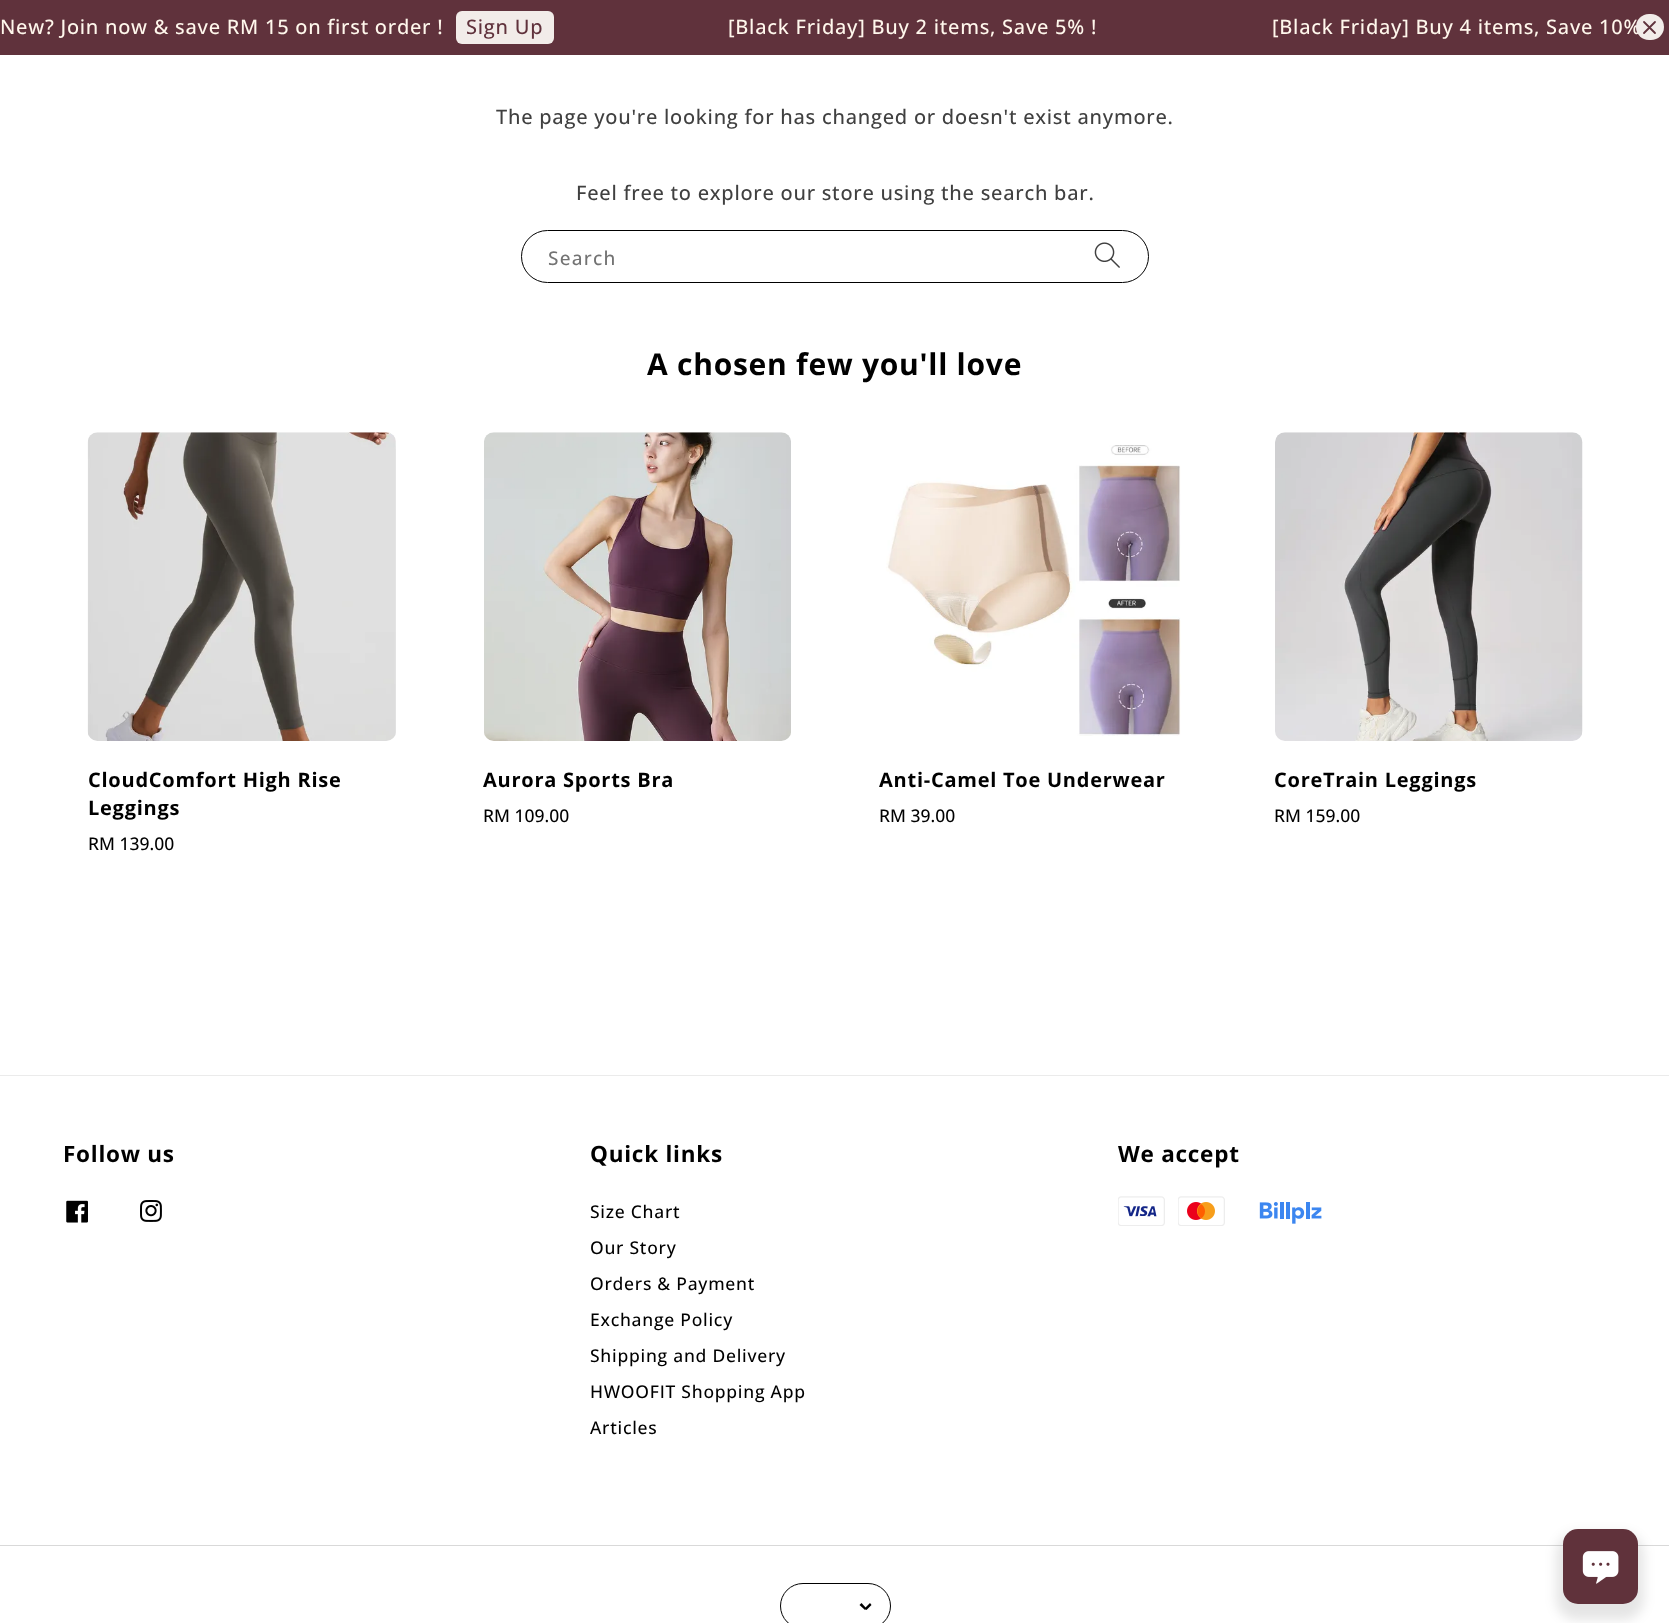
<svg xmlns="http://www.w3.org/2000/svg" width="1669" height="1623">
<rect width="100%" height="100%" fill="#fff"/>
<rect width="1669" height="55" fill="#60323c"/>
<text x="0" y="34" style="font-family:Open Sans;font-size:20px;font-weight:500;letter-spacing:0.75px;fill:#fff7ec">New? Join now &amp; save RM 15 on first order !</text>
<rect x="456" y="11" width="98" height="33" rx="6" fill="#f2ece9"/>
<text x="466" y="34" style="font-family:Open Sans;font-size:20px;font-weight:500;letter-spacing:0.75px;fill:#60323c">Sign Up</text>
<text x="728" y="34" style="font-family:Open Sans;font-size:20px;font-weight:500;letter-spacing:0.75px;fill:#fff7ec">[Black Friday] Buy 2 items, Save 5% !</text>
<text x="1272" y="34" style="font-family:Open Sans;font-size:20px;font-weight:500;letter-spacing:0.75px;fill:#fff7ec">[Black Friday] Buy 4 items, Save 10%</text>
<rect x="1636" y="14" width="28" height="26" rx="13" fill="#f2ece9"/>
<path d="M1655 22l-11 11m0-11l11 11" fill="none" stroke="#60323c" stroke-width="1.8" stroke-linecap="round" stroke-linejoin="round"/>
<text x="496" y="124" style="font-family:Open Sans;font-size:20px;font-weight:500;letter-spacing:0.75px;fill:#404040">The page you're looking for has changed or doesn't exist anymore.</text>
<text x="576" y="200" style="font-family:Open Sans;font-size:20px;font-weight:500;letter-spacing:0.75px;fill:#404040">Feel free to explore our store using the search bar.</text>
<rect x="521.5" y="230.5" width="627" height="52" rx="26" fill="none" stroke="#000"/>
<text x="548" y="265" style="font-family:Open Sans;font-size:19px;font-weight:500;letter-spacing:1.25px;fill:#737373">Search</text>
<image x="1094" y="242" width="26" height="26" href="media/1.png"/>
<text x="647" y="375" style="font-family:Open Sans;font-size:30px;font-weight:bold;letter-spacing:0.75px;fill:#000">A chosen few you'll love</text>
<image x="87" y="432" width="309" height="309" href="media/2.png"/>
<text x="88" y="787" style="font-family:Open Sans;font-size:20px;font-weight:bold;letter-spacing:0.75px;fill:#000">CloudComfort High Rise</text>
<text x="88" y="815" style="font-family:Open Sans;font-size:20px;font-weight:bold;letter-spacing:0.75px;fill:#000">Leggings</text>
<text x="88" y="850" style="font-family:Open Sans;font-size:17.5px;font-weight:500;fill:#000">RM 139.00</text>
<image x="484" y="432" width="307" height="309" href="media/3.png"/>
<text x="483" y="787" style="font-family:Open Sans;font-size:20px;font-weight:bold;letter-spacing:0.75px;fill:#000">Aurora Sports Bra</text>
<text x="483" y="822" style="font-family:Open Sans;font-size:17.5px;font-weight:500;fill:#000">RM 109.00</text>
<image x="886" y="445" width="295" height="291" href="media/4.png"/>
<text x="879" y="787" style="font-family:Open Sans;font-size:20px;font-weight:bold;letter-spacing:0.75px;fill:#000">Anti-Camel Toe Underwear</text>
<text x="879" y="822" style="font-family:Open Sans;font-size:17.5px;font-weight:500;fill:#000">RM 39.00</text>
<image x="1275" y="432" width="308" height="309" href="media/5.png"/>
<text x="1274" y="787" style="font-family:Open Sans;font-size:20px;font-weight:bold;letter-spacing:0.75px;fill:#000">CoreTrain Leggings</text>
<text x="1274" y="822" style="font-family:Open Sans;font-size:17.5px;font-weight:500;fill:#000">RM 159.00</text>
<rect y="1075" width="1669" height="1" fill="#ebebeb"/>
<text x="63" y="1162" style="font-family:Open Sans;font-size:22.5px;font-weight:bold;letter-spacing:0.75px;fill:#000">Follow us</text>
<image x="66" y="1200" width="22" height="23" href="media/6.png"/>
<image x="140" y="1200" width="22" height="22" href="media/7.png"/>
<text x="590" y="1162" style="font-family:Open Sans;font-size:22.5px;font-weight:bold;letter-spacing:0.75px;fill:#000">Quick links</text>
<text x="590" y="1218" style="font-family:Open Sans;font-size:17.5px;font-weight:500;letter-spacing:0.75px;fill:#000">Size Chart</text>
<text x="590" y="1254" style="font-family:Open Sans;font-size:17.5px;font-weight:500;letter-spacing:0.75px;fill:#000">Our Story</text>
<text x="590" y="1290" style="font-family:Open Sans;font-size:17.5px;font-weight:500;letter-spacing:0.75px;fill:#000">Orders &amp; Payment</text>
<text x="590" y="1326" style="font-family:Open Sans;font-size:17.5px;font-weight:500;letter-spacing:0.75px;fill:#000">Exchange Policy</text>
<text x="590" y="1362" style="font-family:Open Sans;font-size:17.5px;font-weight:500;letter-spacing:0.75px;fill:#000">Shipping and Delivery</text>
<text x="590" y="1398" style="font-family:Open Sans;font-size:17.5px;font-weight:500;letter-spacing:0.75px;fill:#000">HWOOFIT Shopping App</text>
<text x="590" y="1434" style="font-family:Open Sans;font-size:17.5px;font-weight:500;letter-spacing:0.75px;fill:#000">Articles</text>
<text x="1118" y="1162" style="font-family:Open Sans;font-size:22.5px;font-weight:bold;letter-spacing:0.75px;fill:#000">We accept</text>
<image x="1118" y="1196" width="47" height="30" href="media/8.png"/>
<image x="1178" y="1196" width="47" height="30" href="media/9.png"/>
<image x="1259" y="1202" width="63" height="22" href="media/10.png"/>
<rect y="1545" width="1669" height="1" fill="#d9d9d9"/>
<rect x="780.5" y="1583.5" width="110" height="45" rx="22.5" fill="none" stroke="#000"/>
<path d="M870 1603l1.5 2l-5 5l-2-1.5z" fill="#000"/>
<path d="M859.5 1605l2-2l5 5.5l-1.5 1.5z" fill="#000"/>
<rect x="1556" y="1533" width="88" height="87" rx="21" fill="#0000001a" filter="blur(6px)"/>
<rect x="1563" y="1529" width="75" height="75" rx="15" fill="#60323b"/>
<image x="1582" y="1551" width="37" height="33" href="media/11.png"/>
</svg>
